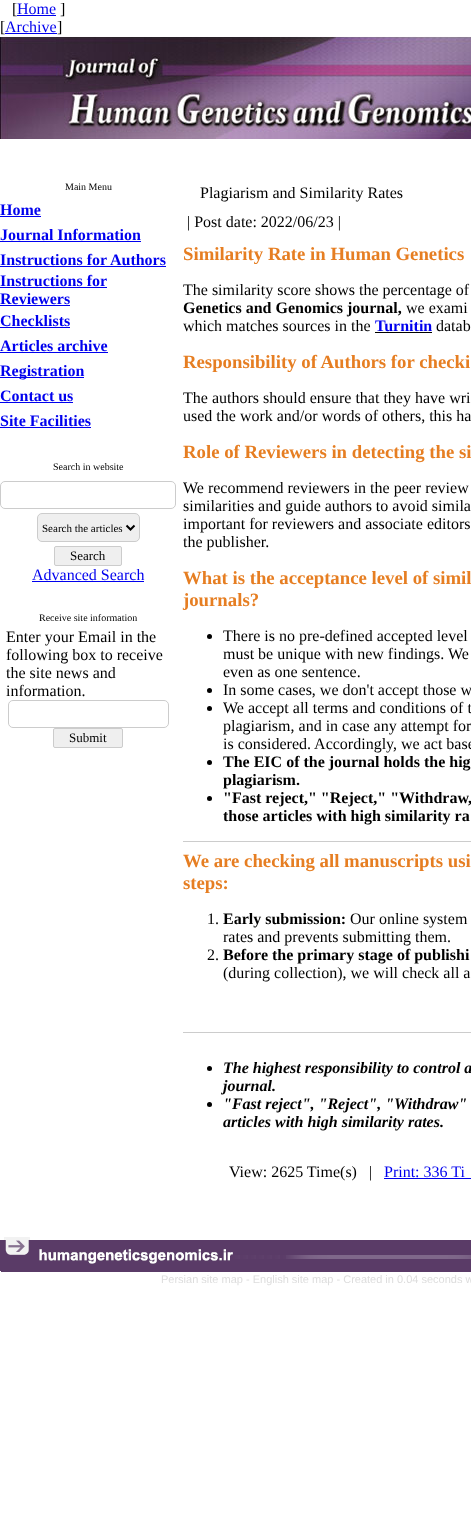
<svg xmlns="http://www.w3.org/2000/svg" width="471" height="1526">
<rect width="100%" height="100%" fill="#fff"/>
<text x="12" y="14" style="font-family:Liberation Serif;font-size:16px;fill:#000">[</text>
<text x="17" y="14" style="font-family:Liberation Serif;font-size:16px;fill:#00e">Home</text>
<rect x="17" y="15" width="39" height="1" fill="#00e"/>
<text x="60" y="14" style="font-family:Liberation Serif;font-size:16px;fill:#000">]</text>
<text x="0" y="32" style="font-family:Liberation Serif;font-size:16px;fill:#000">[</text>
<text x="5" y="32" style="font-family:Liberation Serif;font-size:16px;fill:#00e">Archive</text>
<rect x="5" y="33" width="52" height="1" fill="#00e"/>
<text x="57" y="32" style="font-family:Liberation Serif;font-size:16px;fill:#000">]</text>
<image x="0" y="36" width="471" height="103" href="media/1.png"/>
<text x="65" y="190" style="font-family:Liberation Serif;font-size:10px;fill:#000">Main Menu</text>
<text x="0" y="215" style="font-family:Liberation Serif;font-size:16px;font-weight:bold;fill:#00e">Home</text>
<rect y="216" width="41" height="1" fill="#00e"/>
<text x="0" y="240" style="font-family:Liberation Serif;font-size:16px;font-weight:bold;fill:#00e">Journal Information</text>
<rect y="241" width="141" height="1" fill="#00e"/>
<text x="0" y="265" style="font-family:Liberation Serif;font-size:16px;font-weight:bold;fill:#00e">Instructions for Authors</text>
<rect y="266" width="166" height="1" fill="#00e"/>
<text x="0" y="286" style="font-family:Liberation Serif;font-size:16px;font-weight:bold;fill:#00e">Instructions for</text>
<rect y="287" width="107" height="1" fill="#00e"/>
<text x="0" y="304" style="font-family:Liberation Serif;font-size:16px;font-weight:bold;fill:#00e">Reviewers</text>
<rect y="305" width="70" height="1" fill="#00e"/>
<text x="0" y="326" style="font-family:Liberation Serif;font-size:16px;font-weight:bold;fill:#00e">Checklists</text>
<rect y="327" width="70" height="1" fill="#00e"/>
<text x="0" y="351" style="font-family:Liberation Serif;font-size:16px;font-weight:bold;fill:#00e">Articles archive</text>
<rect y="352" width="108" height="1" fill="#00e"/>
<rect y="377" width="84" height="1" fill="#00e"/>
<text x="0" y="376" style="font-family:Liberation Serif;font-size:16px;font-weight:bold;fill:#00e">Registration</text>
<text x="0" y="401" style="font-family:Liberation Serif;font-size:16px;font-weight:bold;fill:#00e">Contact us</text>
<rect y="402" width="73" height="1" fill="#00e"/>
<text x="0" y="426" style="font-family:Liberation Serif;font-size:16px;font-weight:bold;fill:#00e">Site Facilities</text>
<rect y="427" width="91" height="1" fill="#00e"/>
<text x="53" y="470" style="font-family:Liberation Serif;font-size:10px;fill:#000">Search in website</text>
<rect x="0.5" y="481.5" width="175" height="27" rx="4.5" fill="none" stroke="#ccc"/>
<rect x="37.5" y="513.5" width="102" height="28" rx="4.5" fill="#efefef" stroke="#ccc"/>
<path d="M126.5 525.5l4 4l4-4" fill="none" stroke="#000" stroke-width="2"/>
<text x="42" y="532" style="font-family:Liberation Serif;font-size:11px;fill:#000">Search the articles</text>
<rect x="54.5" y="546.5" width="67" height="19" rx="1.5" fill="#efefef" stroke="#ccc"/>
<text x="70" y="560" style="font-family:Liberation Serif;font-size:13px;fill:#000">Search</text>
<text x="32" y="580" style="font-family:Liberation Serif;font-size:16px;fill:#00e">Advanced Search</text>
<rect x="32" y="581" width="112" height="1" fill="#00e"/>
<text x="39" y="621" style="font-family:Liberation Serif;font-size:10px;fill:#000">Receive site information</text>
<text x="6" y="642" style="font-family:Liberation Serif;font-size:16px;fill:#000">Enter your Email in the</text>
<text x="6" y="660" style="font-family:Liberation Serif;font-size:16px;fill:#000">following box to receive</text>
<text x="6" y="678" style="font-family:Liberation Serif;font-size:16px;fill:#000">the site news and</text>
<text x="6" y="696" style="font-family:Liberation Serif;font-size:16px;fill:#000">information.</text>
<rect x="8.5" y="700.5" width="160" height="27" rx="4.5" fill="none" stroke="#ccc"/>
<rect x="53.5" y="728.5" width="69" height="19" rx="1.5" fill="#efefef" stroke="#ccc"/>
<text x="69" y="742" style="font-family:Liberation Serif;font-size:13px;fill:#000">Submit</text>
<text x="200" y="198" style="font-family:Liberation Serif;font-size:16px;fill:#000">Plagiarism and Similarity Rates</text>
<text x="187" y="227" style="font-family:Liberation Serif;font-size:16px;fill:#000">| Post date: 2022/06/23 |</text>
<text x="183" y="260" style="font-family:Liberation Serif;font-size:18.75px;font-weight:bold;fill:#e67e22">Similarity Rate in Human Genetics</text>
<text x="183" y="295" style="font-family:Liberation Serif;font-size:16px;fill:#000">The similarity score shows the percentage of</text>
<text x="183" y="313" style="font-family:Liberation Serif;font-size:16px;font-weight:bold;fill:#000">Genetics and Genomics journal,</text>
<text x="406" y="313" style="font-family:Liberation Serif;font-size:16px;fill:#000">we exami</text>
<text x="183" y="331" style="font-family:Liberation Serif;font-size:16px;fill:#000">which matches sources in the</text>
<text x="375" y="331" style="font-family:Liberation Serif;font-size:16px;font-weight:bold;fill:#00e">Turnitin</text>
<rect x="375" y="332" width="57" height="1" fill="#000"/>
<text x="436" y="331" style="font-family:Liberation Serif;font-size:16px;fill:#000">datab</text>
<text x="183" y="368" style="font-family:Liberation Serif;font-size:18.75px;font-weight:bold;fill:#e67e22">Responsibility of Authors for checki</text>
<text x="183" y="403" style="font-family:Liberation Serif;font-size:16px;fill:#000">The authors should ensure that they have wri</text>
<text x="183" y="421" style="font-family:Liberation Serif;font-size:16px;fill:#000">used the work and/or words of others, this ha</text>
<text x="183" y="458" style="font-family:Liberation Serif;font-size:18.75px;font-weight:bold;fill:#e67e22">Role of Reviewers in detecting the si</text>
<text x="183" y="493" style="font-family:Liberation Serif;font-size:16px;fill:#000">We recommend reviewers in the peer review</text>
<text x="183" y="511" style="font-family:Liberation Serif;font-size:16px;fill:#000">similarities and guide authors to avoid simila</text>
<text x="183" y="529" style="font-family:Liberation Serif;font-size:16px;fill:#000">important for reviewers and associate editors</text>
<text x="183" y="547" style="font-family:Liberation Serif;font-size:16px;fill:#000">the publisher.</text>
<text x="183" y="584" style="font-family:Liberation Serif;font-size:18.75px;font-weight:bold;fill:#e67e22">What is the acceptance level of simil</text>
<text x="183" y="606" style="font-family:Liberation Serif;font-size:18.75px;font-weight:bold;fill:#e67e22">journals?</text>
<circle cx="209.5" cy="636.5" r="2.5" fill="#000"/>
<text x="223" y="641" style="font-family:Liberation Serif;font-size:16px;fill:#000">There is no pre-defined accepted level</text>
<text x="223" y="659" style="font-family:Liberation Serif;font-size:16px;fill:#000">must be unique with new findings. We</text>
<text x="223" y="677" style="font-family:Liberation Serif;font-size:16px;fill:#000">even as one sentence.</text>
<circle cx="209.5" cy="690.5" r="2.5" fill="#000"/>
<text x="223" y="695" style="font-family:Liberation Serif;font-size:16px;fill:#000">In some cases, we don't accept those w</text>
<circle cx="209.5" cy="708.5" r="2.5" fill="#000"/>
<text x="223" y="713" style="font-family:Liberation Serif;font-size:16px;fill:#000">We accept all terms and conditions of t</text>
<text x="223" y="731" style="font-family:Liberation Serif;font-size:16px;fill:#000">plagiarism, and in case any attempt for</text>
<text x="223" y="749" style="font-family:Liberation Serif;font-size:16px;fill:#000">is considered. Accordingly, we act base</text>
<circle cx="209.5" cy="762.5" r="2.5" fill="#000"/>
<text x="223" y="767" style="font-family:Liberation Serif;font-size:16px;font-weight:bold;fill:#000">The EIC of the journal holds the hig</text>
<text x="223" y="785" style="font-family:Liberation Serif;font-size:16px;font-weight:bold;fill:#000">plagiarism.</text>
<circle cx="209.5" cy="798.5" r="2.5" fill="#000"/>
<text x="223" y="803" style="font-family:Liberation Serif;font-size:16px;font-weight:bold;fill:#000">"Fast reject," "Reject," "Withdraw,</text>
<text x="223" y="821" style="font-family:Liberation Serif;font-size:16px;font-weight:bold;fill:#000">those articles with high similarity ra</text>
<rect x="183" y="841" width="288" height="1" fill="#ccc"/>
<text x="183" y="867" style="font-family:Liberation Serif;font-size:18.75px;font-weight:bold;fill:#e67e22">We are checking all manuscripts usi</text>
<text x="183" y="889" style="font-family:Liberation Serif;font-size:18.75px;font-weight:bold;fill:#e67e22">steps:</text>
<text x="207" y="924" style="font-family:Liberation Serif;font-size:16px;fill:#000">1.</text>
<text x="223" y="924" style="font-family:Liberation Serif;font-size:16px;font-weight:bold;fill:#000">Early submission:</text>
<text x="350" y="924" style="font-family:Liberation Serif;font-size:16px;fill:#000">Our online system</text>
<text x="223" y="942" style="font-family:Liberation Serif;font-size:16px;fill:#000">rates and prevents submitting them.</text>
<text x="207" y="960" style="font-family:Liberation Serif;font-size:16px;fill:#000">2.</text>
<text x="223" y="960" style="font-family:Liberation Serif;font-size:16px;font-weight:bold;fill:#000">Before the primary stage of publishi</text>
<text x="223" y="978" style="font-family:Liberation Serif;font-size:16px;fill:#000">(during collection), we will check all a</text>
<rect x="183" y="1032" width="288" height="1" fill="#ccc"/>
<circle cx="209.5" cy="1068.5" r="2.5" fill="#000"/>
<text x="223" y="1073" style="font-family:Liberation Serif;font-size:16px;font-weight:bold;font-style:italic;fill:#000">The highest responsibility to control a</text>
<text x="223" y="1091" style="font-family:Liberation Serif;font-size:16px;font-weight:bold;font-style:italic;fill:#000">journal.</text>
<circle cx="209.5" cy="1104.5" r="2.5" fill="#000"/>
<text x="223" y="1109" style="font-family:Liberation Serif;font-size:16px;font-weight:bold;font-style:italic;fill:#000">"Fast reject", "Reject", "Withdraw"</text>
<text x="223" y="1127" style="font-family:Liberation Serif;font-size:16px;font-weight:bold;font-style:italic;fill:#000">articles with high similarity rates.</text>
<text x="229" y="1177" style="font-family:Liberation Serif;font-size:16px;fill:#000" xml:space="preserve">View: 2625 Time(s)   |</text>
<text x="384" y="1177" style="font-family:Liberation Serif;font-size:16px;fill:#00e">Print: 336 Ti</text>
<rect x="384" y="1178" width="87" height="1" fill="#00e"/>
<image x="233" y="1240" width="53" height="32" href="media/2.png"/>
<image x="0" y="1237" width="233" height="35" href="media/3.png"/>
<image x="286" y="1240" width="185" height="32" href="media/4.png"/>
<image x="286" y="1255" width="185" height="4" href="media/5.png"/>
<text x="161" y="1283" style="font-family:Liberation Sans;font-size:11px;fill:#ddd">Persian site map - English site map - Created in 0.04 seconds w</text>
</svg>
